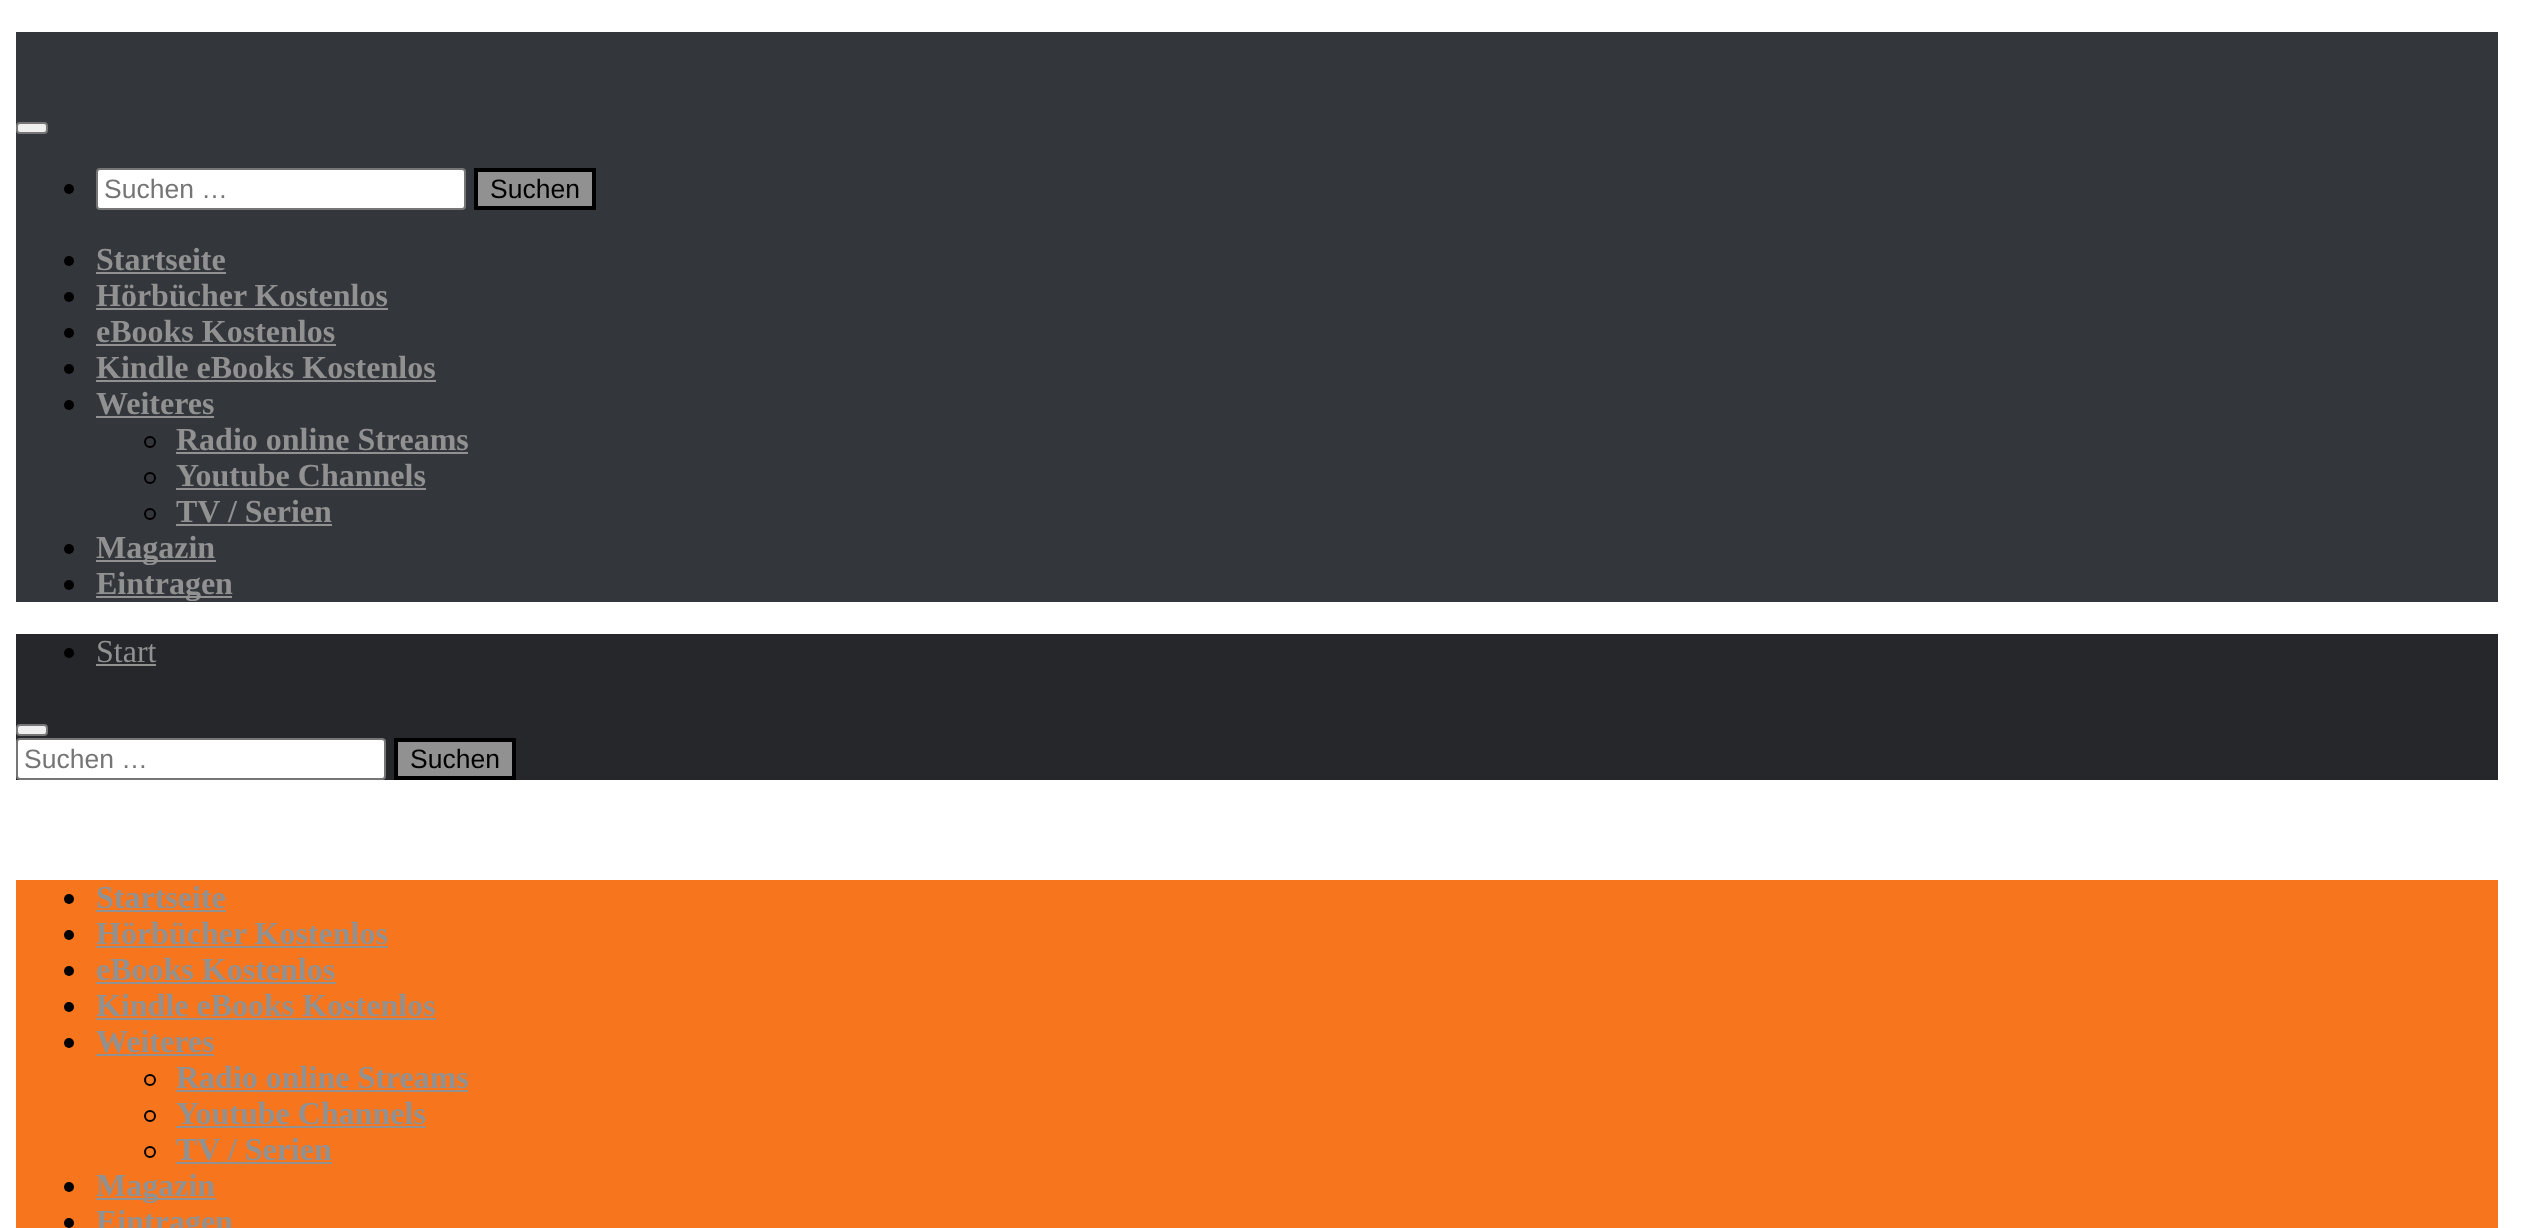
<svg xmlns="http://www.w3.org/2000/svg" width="2543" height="1228">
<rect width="100%" height="100%" fill="#fff"/>
<rect x="16" y="32" width="2482" height="570" fill="#33363b"/>
<rect x="17" y="123" width="30" height="10" rx="3" fill="#efefef" stroke="#767676" stroke-width="2"/>
<circle cx="69" cy="189" r="5" fill="#000"/>
<rect x="97" y="169" width="368" height="40" rx="3" fill="#fff" stroke="#767676" stroke-width="2"/>
<text x="104" y="198" style="font-family:Liberation Sans;font-size:26.5px;fill:#757575">Suchen …</text>
<rect x="476" y="170" width="118" height="38" fill="#919191" stroke="#000" stroke-width="4"/>
<text x="490" y="198" style="font-family:Liberation Sans;font-size:26.5px;fill:#000">Suchen</text>
<circle cx="69" cy="261" r="5" fill="#000"/>
<text x="96" y="270" style="font-family:Liberation Serif;font-size:32px;font-weight:bold;fill:#919191">Startseite</text>
<rect x="96" y="272" width="130" height="2" fill="#919191"/>
<circle cx="69" cy="297" r="5" fill="#000"/>
<text x="96" y="306" style="font-family:Liberation Serif;font-size:32px;font-weight:bold;fill:#919191">Hörbücher Kostenlos</text>
<rect x="96" y="308" width="292" height="2" fill="#919191"/>
<circle cx="69" cy="333" r="5" fill="#000"/>
<text x="96" y="342" style="font-family:Liberation Serif;font-size:32px;font-weight:bold;fill:#919191">eBooks Kostenlos</text>
<rect x="96" y="344" width="240" height="2" fill="#919191"/>
<circle cx="69" cy="369" r="5" fill="#000"/>
<text x="96" y="378" style="font-family:Liberation Serif;font-size:32px;font-weight:bold;fill:#919191">Kindle eBooks Kostenlos</text>
<rect x="96" y="380" width="340" height="2" fill="#919191"/>
<circle cx="69" cy="405" r="5" fill="#000"/>
<text x="96" y="414" style="font-family:Liberation Serif;font-size:32px;font-weight:bold;fill:#919191">Weiteres</text>
<rect x="96" y="416" width="118" height="2" fill="#919191"/>
<circle cx="150" cy="442" r="5" fill="none" stroke="#000" stroke-width="2"/>
<text x="176" y="450" style="font-family:Liberation Serif;font-size:32px;font-weight:bold;fill:#919191">Radio online Streams</text>
<rect x="176" y="452" width="292" height="2" fill="#919191"/>
<circle cx="150" cy="478" r="5" fill="none" stroke="#000" stroke-width="2"/>
<text x="176" y="486" style="font-family:Liberation Serif;font-size:32px;font-weight:bold;fill:#919191">Youtube Channels</text>
<rect x="176" y="488" width="250" height="2" fill="#919191"/>
<circle cx="150" cy="514" r="5" fill="none" stroke="#000" stroke-width="2"/>
<text x="176" y="522" style="font-family:Liberation Serif;font-size:32px;font-weight:bold;fill:#919191">TV / Serien</text>
<rect x="176" y="524" width="156" height="2" fill="#919191"/>
<circle cx="69" cy="549" r="5" fill="#000"/>
<rect x="96" y="560" width="120" height="2" fill="#919191"/>
<text x="96" y="558" style="font-family:Liberation Serif;font-size:32px;font-weight:bold;fill:#919191">Magazin</text>
<circle cx="69" cy="585" r="5" fill="#000"/>
<rect x="96" y="596" width="136" height="2" fill="#919191"/>
<text x="96" y="594" style="font-family:Liberation Serif;font-size:32px;font-weight:bold;fill:#919191">Eintragen</text>
<rect x="16" y="634" width="2482" height="146" fill="#26272b"/>
<circle cx="69" cy="653" r="5" fill="#000"/>
<text x="96" y="662" style="font-family:Liberation Serif;font-size:32px;fill:#919191">Start</text>
<rect x="96" y="664" width="60" height="2" fill="#919191"/>
<rect x="17" y="725" width="30" height="10" rx="3" fill="#efefef" stroke="#767676" stroke-width="2"/>
<rect x="17" y="739" width="368" height="40" rx="3" fill="#fff" stroke="#767676" stroke-width="2"/>
<text x="24" y="768" style="font-family:Liberation Sans;font-size:26.5px;fill:#757575">Suchen …</text>
<rect x="396" y="740" width="118" height="38" fill="#919191" stroke="#000" stroke-width="4"/>
<text x="410" y="768" style="font-family:Liberation Sans;font-size:26.5px;fill:#000">Suchen</text>
<rect x="16" y="880" width="2482" height="348" fill="#f7751d"/>
<circle cx="69" cy="899" r="5" fill="#000"/>
<text x="96" y="908" style="font-family:Liberation Serif;font-size:32px;font-weight:bold;fill:#919191">Startseite</text>
<rect x="96" y="910" width="130" height="2" fill="#919191"/>
<circle cx="69" cy="935" r="5" fill="#000"/>
<text x="96" y="944" style="font-family:Liberation Serif;font-size:32px;font-weight:bold;fill:#919191">Hörbücher Kostenlos</text>
<rect x="96" y="946" width="292" height="2" fill="#919191"/>
<circle cx="69" cy="971" r="5" fill="#000"/>
<text x="96" y="980" style="font-family:Liberation Serif;font-size:32px;font-weight:bold;fill:#919191">eBooks Kostenlos</text>
<rect x="96" y="982" width="240" height="2" fill="#919191"/>
<circle cx="69" cy="1007" r="5" fill="#000"/>
<text x="96" y="1016" style="font-family:Liberation Serif;font-size:32px;font-weight:bold;fill:#919191">Kindle eBooks Kostenlos</text>
<rect x="96" y="1018" width="340" height="2" fill="#919191"/>
<circle cx="69" cy="1043" r="5" fill="#000"/>
<text x="96" y="1052" style="font-family:Liberation Serif;font-size:32px;font-weight:bold;fill:#919191">Weiteres</text>
<rect x="96" y="1054" width="118" height="2" fill="#919191"/>
<circle cx="150" cy="1080" r="5" fill="none" stroke="#000" stroke-width="2"/>
<text x="176" y="1088" style="font-family:Liberation Serif;font-size:32px;font-weight:bold;fill:#919191">Radio online Streams</text>
<rect x="176" y="1090" width="292" height="2" fill="#919191"/>
<circle cx="150" cy="1116" r="5" fill="none" stroke="#000" stroke-width="2"/>
<text x="176" y="1124" style="font-family:Liberation Serif;font-size:32px;font-weight:bold;fill:#919191">Youtube Channels</text>
<rect x="176" y="1126" width="250" height="2" fill="#919191"/>
<circle cx="150" cy="1152" r="5" fill="none" stroke="#000" stroke-width="2"/>
<text x="176" y="1160" style="font-family:Liberation Serif;font-size:32px;font-weight:bold;fill:#919191">TV / Serien</text>
<rect x="176" y="1162" width="156" height="2" fill="#919191"/>
<circle cx="69" cy="1187" r="5" fill="#000"/>
<rect x="96" y="1198" width="120" height="2" fill="#919191"/>
<text x="96" y="1196" style="font-family:Liberation Serif;font-size:32px;font-weight:bold;fill:#919191">Magazin</text>
<circle cx="69" cy="1223" r="5" fill="#000"/>
<text x="96" y="1232" style="font-family:Liberation Serif;font-size:32px;font-weight:bold;fill:#919191">Eintragen</text>
</svg>
